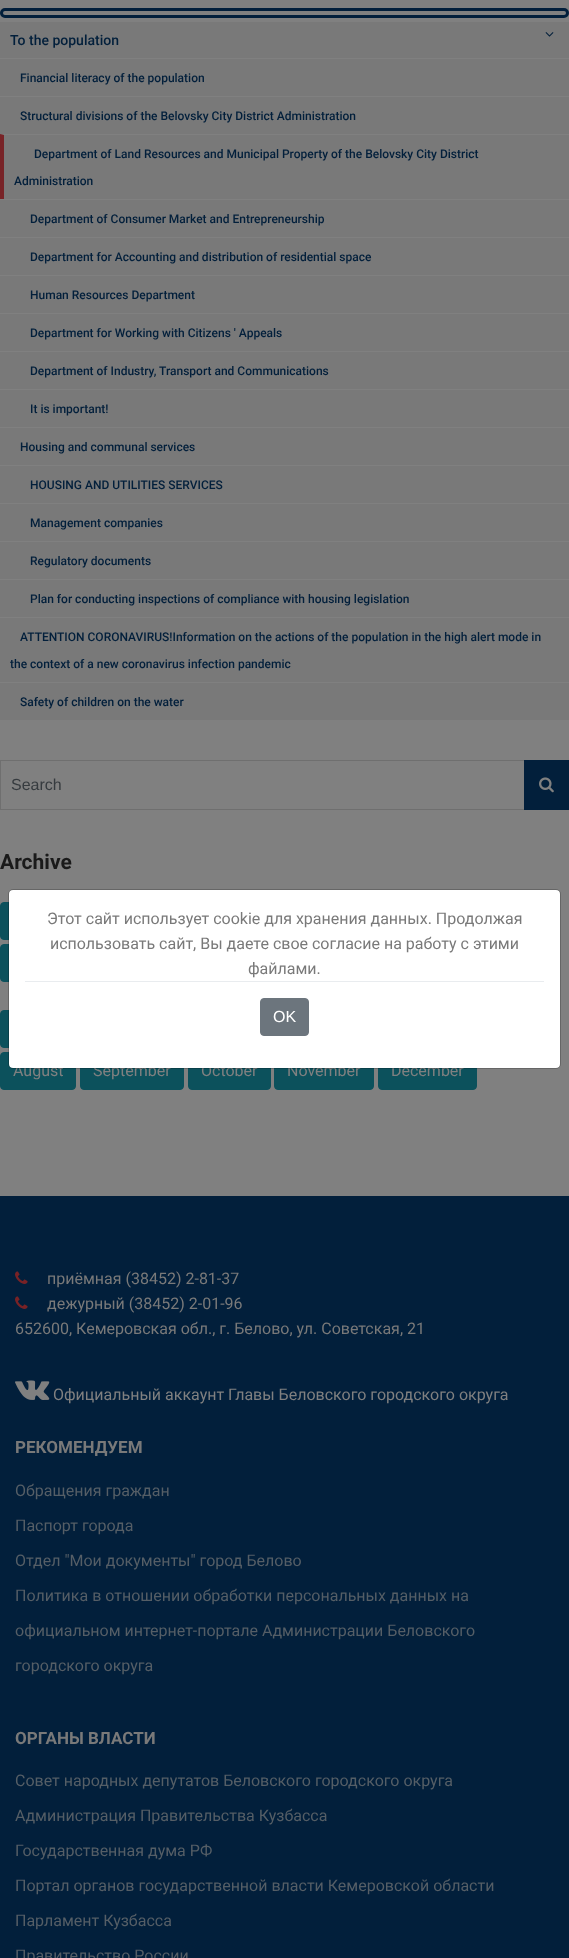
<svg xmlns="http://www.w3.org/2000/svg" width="569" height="1958">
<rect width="100%" height="100%" fill="#808080"/>
<rect x="1.5" y="9.5" width="566" height="7" rx="3.5" fill="none" stroke="#021f3b" stroke-width="3"/>
<rect y="22" width="569" height="698" fill="#797979"/>
<text x="10" y="45" style="font-family:Roboto;font-size:14px;font-weight:500;fill:#021f3b">To the population</text>
<image x="545" y="32" width="9" height="5" href="media/1.png"/>
<rect y="58" width="569" height="1" fill="#808080"/>
<text x="20" y="82" style="font-family:Roboto;font-size:12px;font-weight:500;fill:#021f3b">Financial literacy of the population</text>
<rect y="96" width="569" height="1" fill="#808080"/>
<text x="20" y="120" style="font-family:Roboto;font-size:12px;font-weight:500;fill:#021f3b">Structural divisions of the Belovsky City District Administration</text>
<path d="M0 134h569v1h-565z" fill="#808080"/>
<path d="M0 199v-65l4 1v64z" fill="#782327"/>
<text x="34" y="158" style="font-family:Roboto;font-size:12px;font-weight:500;fill:#021f3b">Department of Land Resources and Municipal Property of the Belovsky City District</text>
<text x="14" y="185" style="font-family:Roboto;font-size:12px;font-weight:500;fill:#021f3b">Administration</text>
<rect y="199" width="569" height="1" fill="#808080"/>
<text x="30" y="223" style="font-family:Roboto;font-size:12px;font-weight:500;fill:#021f3b">Department of Consumer Market and Entrepreneurship</text>
<rect y="237" width="569" height="1" fill="#808080"/>
<text x="30" y="261" style="font-family:Roboto;font-size:12px;font-weight:500;fill:#021f3b">Department for Accounting and distribution of residential space</text>
<rect y="275" width="569" height="1" fill="#808080"/>
<text x="30" y="299" style="font-family:Roboto;font-size:12px;font-weight:500;fill:#021f3b">Human Resources Department</text>
<rect y="313" width="569" height="1" fill="#808080"/>
<text x="30" y="337" style="font-family:Roboto;font-size:12px;font-weight:500;fill:#021f3b">Department for Working with Citizens ' Appeals</text>
<rect y="351" width="569" height="1" fill="#808080"/>
<text x="30" y="375" style="font-family:Roboto;font-size:12px;font-weight:500;fill:#021f3b">Department of Industry, Transport and Communications</text>
<rect y="389" width="569" height="1" fill="#808080"/>
<text x="30" y="413" style="font-family:Roboto;font-size:12px;font-weight:500;fill:#021f3b">It is important!</text>
<rect y="427" width="569" height="1" fill="#808080"/>
<text x="20" y="451" style="font-family:Roboto;font-size:12px;font-weight:500;fill:#021f3b">Housing and communal services</text>
<rect y="465" width="569" height="1" fill="#808080"/>
<text x="30" y="489" style="font-family:Roboto;font-size:12px;font-weight:500;fill:#021f3b">HOUSING AND UTILITIES SERVICES</text>
<rect y="503" width="569" height="1" fill="#808080"/>
<text x="30" y="527" style="font-family:Roboto;font-size:12px;font-weight:500;fill:#021f3b">Management companies</text>
<rect y="541" width="569" height="1" fill="#808080"/>
<text x="30" y="565" style="font-family:Roboto;font-size:12px;font-weight:500;fill:#021f3b">Regulatory documents</text>
<rect y="579" width="569" height="1" fill="#808080"/>
<text x="30" y="603" style="font-family:Roboto;font-size:12px;font-weight:500;fill:#021f3b">Plan for conducting inspections of compliance with housing legislation</text>
<rect y="617" width="569" height="1" fill="#808080"/>
<text x="20" y="641" style="font-family:Roboto;font-size:12px;font-weight:500;fill:#021f3b">ATTENTION CORONAVIRUS!Information on the actions of the population in the high alert mode in</text>
<text x="10" y="668" style="font-family:Roboto;font-size:12px;font-weight:500;fill:#021f3b">the context of a new coronavirus infection pandemic</text>
<rect y="682" width="569" height="1" fill="#808080"/>
<text x="20" y="706" style="font-family:Roboto;font-size:12px;font-weight:500;fill:#021f3b">Safety of children on the water</text>
<rect x="0.5" y="760.5" width="524" height="49" fill="none" stroke="#6f6f6f"/>
<text x="11" y="790" style="font-family:Liberation Sans;font-size:16px;fill:#363b3f">Search</text>
<rect x="524" y="760" width="45" height="50" fill="#021f3b"/>
<image x="539" y="777" width="15" height="16" href="media/2.png"/>
<text x="0" y="869" style="font-family:Roboto;font-size:21px;font-weight:bold;fill:#1a1a1a">Archive</text>
<rect x="0.5" y="902.5" width="61" height="37" rx="3.5" fill="#0c515c" stroke="#0c515c"/>
<rect x="0.5" y="944.5" width="61" height="37" rx="3.5" fill="#0c515c" stroke="#0c515c"/>
<rect x="0.5" y="1010.5" width="82" height="37" rx="3.5" fill="#0c515c" stroke="#0c515c"/>
<rect x="0.5" y="1052.5" width="75" height="37" rx="3.5" fill="#0c515c" stroke="#0c515c"/>
<text x="13" y="1076" style="font-family:Roboto;font-size:16px;fill:#808080">August</text>
<rect x="80.5" y="1052.5" width="103" height="37" rx="3.5" fill="#0c515c" stroke="#0c515c"/>
<text x="93" y="1076" style="font-family:Roboto;font-size:16px;fill:#808080">September</text>
<rect x="188.5" y="1052.5" width="82" height="37" rx="3.5" fill="#0c515c" stroke="#0c515c"/>
<text x="201" y="1076" style="font-family:Roboto;font-size:16px;fill:#808080">October</text>
<rect x="274.5" y="1052.5" width="99" height="37" rx="3.5" fill="#0c515c" stroke="#0c515c"/>
<text x="287" y="1076" style="font-family:Roboto;font-size:16px;fill:#808080">November</text>
<rect x="378.5" y="1052.5" width="98" height="37" rx="3.5" fill="#0c515c" stroke="#0c515c"/>
<text x="391" y="1076" style="font-family:Roboto;font-size:16px;fill:#808080">December</text>
<rect x="9" y="890" width="551" height="178" rx="4" fill="#fff"/>
<rect x="8.5" y="889.5" width="552" height="179" rx="4.5" fill="none" stroke="#00000033"/>
<text x="47" y="924" style="font-family:Roboto;font-size:16px;fill:#797979">Этот сайт использует cookie для хранения данных. Продолжая</text>
<text x="50" y="949" style="font-family:Roboto;font-size:16px;fill:#797979">использовать сайт, Вы даете свое согласие на работу с этими</text>
<text x="248" y="974" style="font-family:Roboto;font-size:16px;fill:#797979">файлами.</text>
<rect x="25" y="981" width="519" height="1" fill="#e9ecef"/>
<rect x="260.5" y="998.5" width="48" height="37" rx="3.5" fill="#6c757d" stroke="#6c757d"/>
<text x="273" y="1022" style="font-family:Liberation Sans;font-size:16px;fill:#fff">OK</text>
<rect y="1196" width="569" height="762" fill="#021f3b"/>
<image x="15" y="1271" width="13" height="13" href="media/3.png"/>
<text x="47" y="1284" style="font-family:Roboto;font-size:16px;fill:#797979">приёмная (38452) 2-81-37</text>
<image x="15" y="1296" width="13" height="13" href="media/3.png"/>
<text x="47" y="1309" style="font-family:Roboto;font-size:16px;fill:#797979">дежурный (38452) 2-01-96</text>
<text x="15" y="1334" style="font-family:Roboto;font-size:16px;fill:#797979">652600, Кемеровская обл., г. Белово, ул. Советская, 21</text>
<image x="15" y="1380" width="35" height="20" href="media/4.png"/>
<text x="53" y="1400" style="font-family:Roboto;font-size:16px;fill:#808080">Официальный аккаунт Главы Беловского городского округа</text>
<text x="15" y="1453" style="font-family:Roboto;font-size:17px;font-weight:bold;fill:#797979">РЕКОМЕНДУЕМ</text>
<text x="15" y="1496" style="font-family:Roboto;font-size:16px;fill:#555e66">Обращения граждан</text>
<text x="15" y="1531" style="font-family:Roboto;font-size:16px;fill:#555e66">Паспорт города</text>
<text x="15" y="1566" style="font-family:Roboto;font-size:16px;fill:#555e66">Отдел "Мои документы" город Белово</text>
<text x="15" y="1601" style="font-family:Roboto;font-size:16px;fill:#555e66">Политика в отношении обработки персональных данных на</text>
<text x="15" y="1636" style="font-family:Roboto;font-size:16px;fill:#555e66">официальном интернет-портале Администрации Беловского</text>
<text x="15" y="1671" style="font-family:Roboto;font-size:16px;fill:#555e66">городского округа</text>
<text x="15" y="1744" style="font-family:Roboto;font-size:17px;font-weight:bold;fill:#797979">ОРГАНЫ ВЛАСТИ</text>
<text x="15" y="1786" style="font-family:Roboto;font-size:16px;fill:#555e66">Совет народных депутатов Беловского городского округа</text>
<text x="15" y="1821" style="font-family:Roboto;font-size:16px;fill:#555e66">Администрация Правительства Кузбасса</text>
<text x="15" y="1856" style="font-family:Roboto;font-size:16px;fill:#555e66">Государственная дума РФ</text>
<text x="15" y="1891" style="font-family:Roboto;font-size:16px;fill:#555e66">Портал органов государственной власти Кемеровской области</text>
<text x="15" y="1926" style="font-family:Roboto;font-size:16px;fill:#555e66">Парламент Кузбасса</text>
<text x="15" y="1961" style="font-family:Roboto;font-size:16px;fill:#555e66">Правительство России</text>
</svg>
